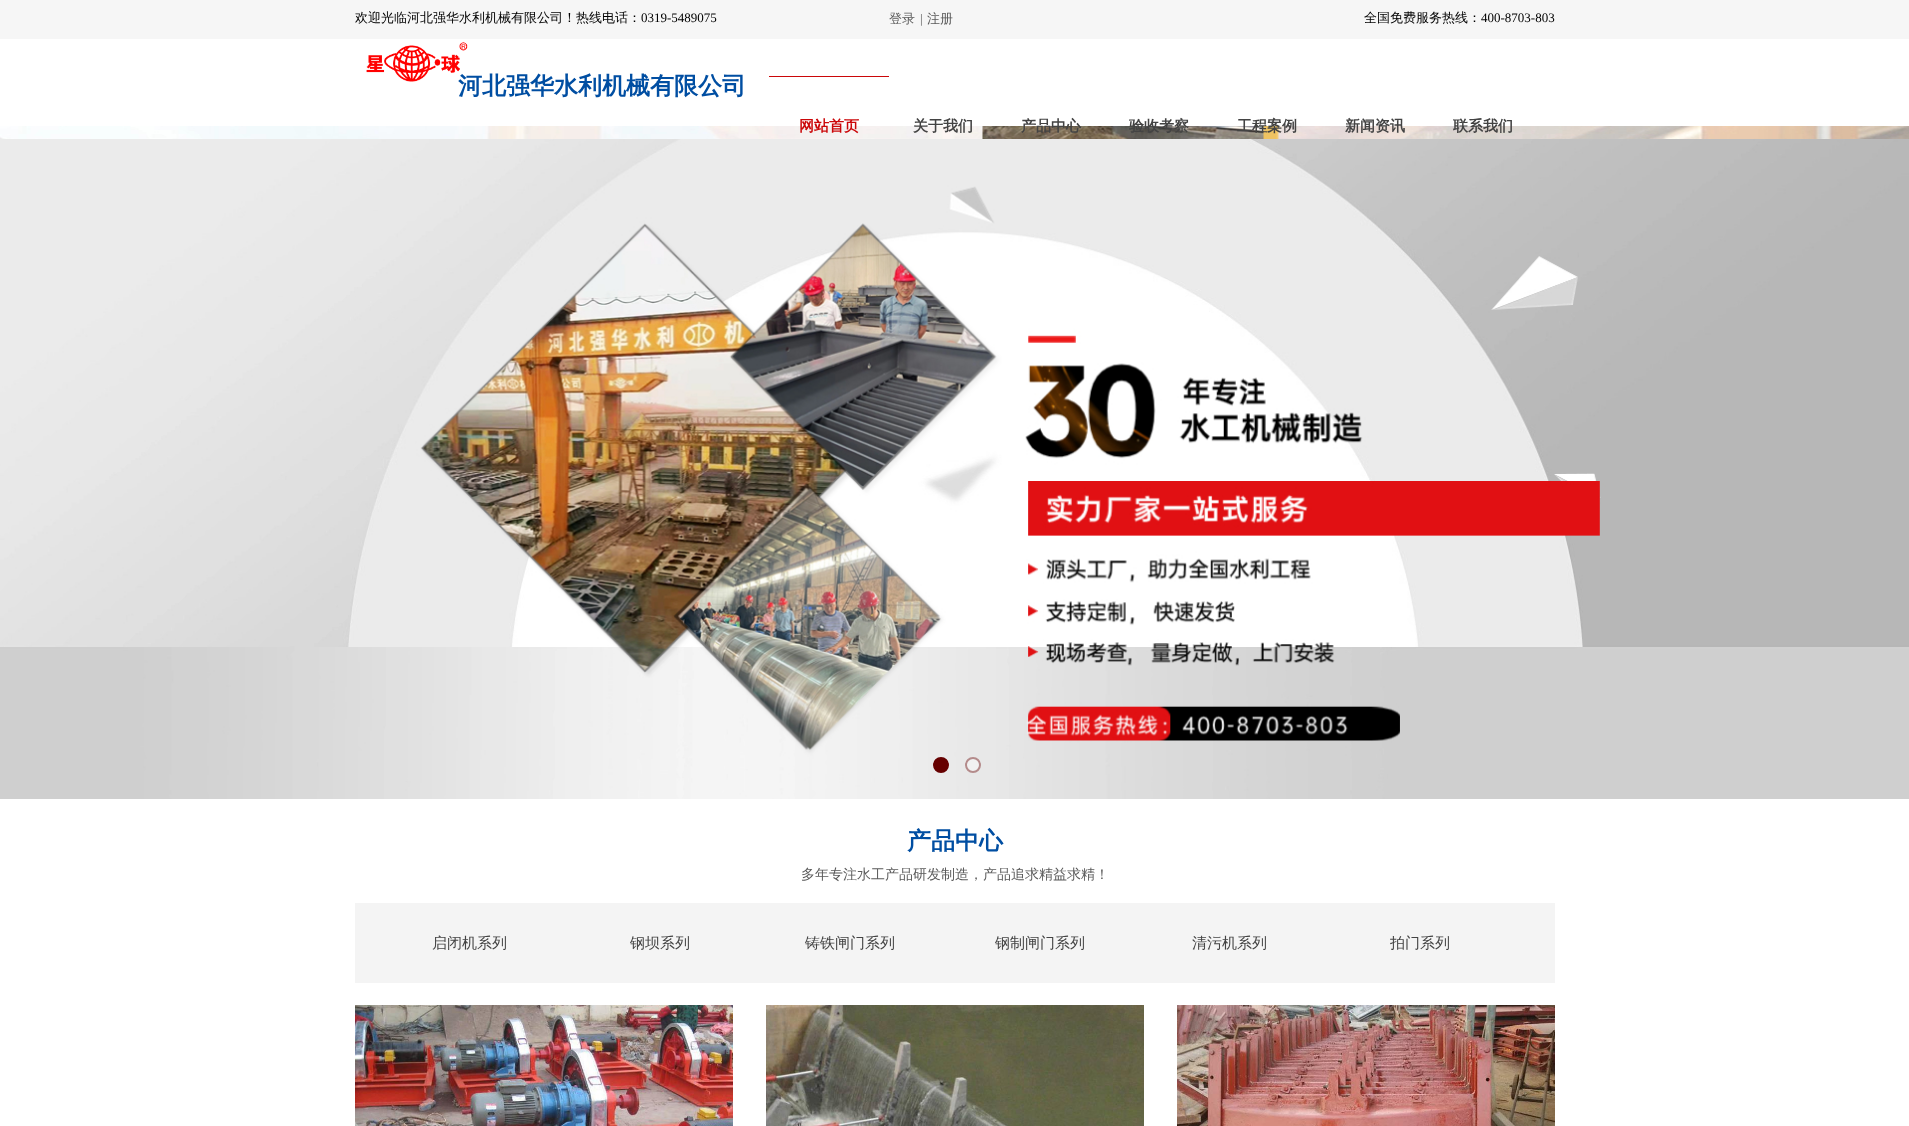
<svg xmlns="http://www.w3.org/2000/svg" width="1909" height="1126">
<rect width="100%" height="100%" fill="#fff"/>
<rect width="1909" height="39" fill="#f6f6f6"/>
<text x="355" y="22" style="font-family:WenQuanYi Zen Hei;font-size:13px;font-weight:500;fill:#000">欢迎光临河北强华水利机械有限公司！热线电话：</text>
<text x="641" y="22" style="font-family:Liberation Serif;font-size:13px;fill:#000">0319-5489075</text>
<text x="889" y="23" style="font-family:WenQuanYi Zen Hei;font-size:13px;font-weight:500;fill:#5a5a5a">登录</text>
<text x="920" y="23" style="font-family:Liberation Serif;font-size:13px;fill:#5a5a5a">|</text>
<text x="927" y="23" style="font-family:WenQuanYi Zen Hei;font-size:13px;font-weight:500;fill:#5a5a5a">注册</text>
<text x="1364" y="22" style="font-family:WenQuanYi Zen Hei;font-size:13px;font-weight:500;fill:#000">全国免费服务热线：</text>
<text x="1481" y="22" style="font-family:Liberation Serif;font-size:13px;fill:#000">400-8703-803</text>
<image x="0" y="39" width="1909" height="87" href="media/1.png"/>
<image x="366" y="42" width="102" height="40" href="media/2.png"/>
<text x="458" y="94" style="font-family:WenQuanYi Zen Hei;font-size:24px;font-weight:bold;fill:#004ea2">河北强华水利机械有限公司</text>
<rect x="769" y="76" width="120" height="1" fill="#cb0709"/>
<image x="0" y="126" width="1909" height="13" href="media/3.png"/>
<text x="799" y="131" style="font-family:WenQuanYi Zen Hei;font-size:15px;font-weight:bold;fill:#cb0709">网站首页</text>
<text x="913" y="131" style="font-family:WenQuanYi Zen Hei;font-size:15px;font-weight:bold;fill:#434343">关于我们</text>
<text x="1021" y="131" style="font-family:WenQuanYi Zen Hei;font-size:15px;font-weight:bold;fill:#434343">产品中心</text>
<text x="1129" y="131" style="font-family:WenQuanYi Zen Hei;font-size:15px;font-weight:bold;fill:#434343">验收考察</text>
<text x="1237" y="131" style="font-family:WenQuanYi Zen Hei;font-size:15px;font-weight:bold;fill:#434343">工程案例</text>
<text x="1345" y="131" style="font-family:WenQuanYi Zen Hei;font-size:15px;font-weight:bold;fill:#434343">新闻资讯</text>
<text x="1453" y="131" style="font-family:WenQuanYi Zen Hei;font-size:15px;font-weight:bold;fill:#434343">联系我们</text>
<image x="0" y="139" width="1909" height="660" href="media/4.png"/>
<circle cx="941" cy="765" r="7" fill="#600" stroke="#600" stroke-width="2"/>
<circle cx="973" cy="765" r="7" fill="#f1f1f1" stroke="#b48b8b" stroke-width="2"/>
<text x="907" y="849" style="font-family:WenQuanYi Zen Hei;font-size:24px;font-weight:bold;fill:#004ea2">产品中心</text>
<text x="801" y="879" style="font-family:WenQuanYi Zen Hei;font-size:14px;font-weight:500;fill:#5a5a5a">多年专注水工产品研发制造，产品追求精益求精！</text>
<rect x="355" y="903" width="1200" height="80" fill="#f4f4f4"/>
<text x="432" y="948" style="font-family:WenQuanYi Zen Hei;font-size:15px;font-weight:500;fill:#434343">启闭机系列</text>
<text x="630" y="948" style="font-family:WenQuanYi Zen Hei;font-size:15px;font-weight:500;fill:#434343">钢坝系列</text>
<text x="805" y="948" style="font-family:WenQuanYi Zen Hei;font-size:15px;font-weight:500;fill:#434343">铸铁闸门系列</text>
<text x="995" y="948" style="font-family:WenQuanYi Zen Hei;font-size:15px;font-weight:500;fill:#434343">钢制闸门系列</text>
<text x="1192" y="948" style="font-family:WenQuanYi Zen Hei;font-size:15px;font-weight:500;fill:#434343">清污机系列</text>
<text x="1390" y="948" style="font-family:WenQuanYi Zen Hei;font-size:15px;font-weight:500;fill:#434343">拍门系列</text>
<image x="355" y="1005" width="378" height="121" href="media/5.png"/>
<image x="766" y="1005" width="378" height="121" href="media/6.png"/>
<image x="1177" y="1005" width="378" height="121" href="media/7.png"/>
</svg>
